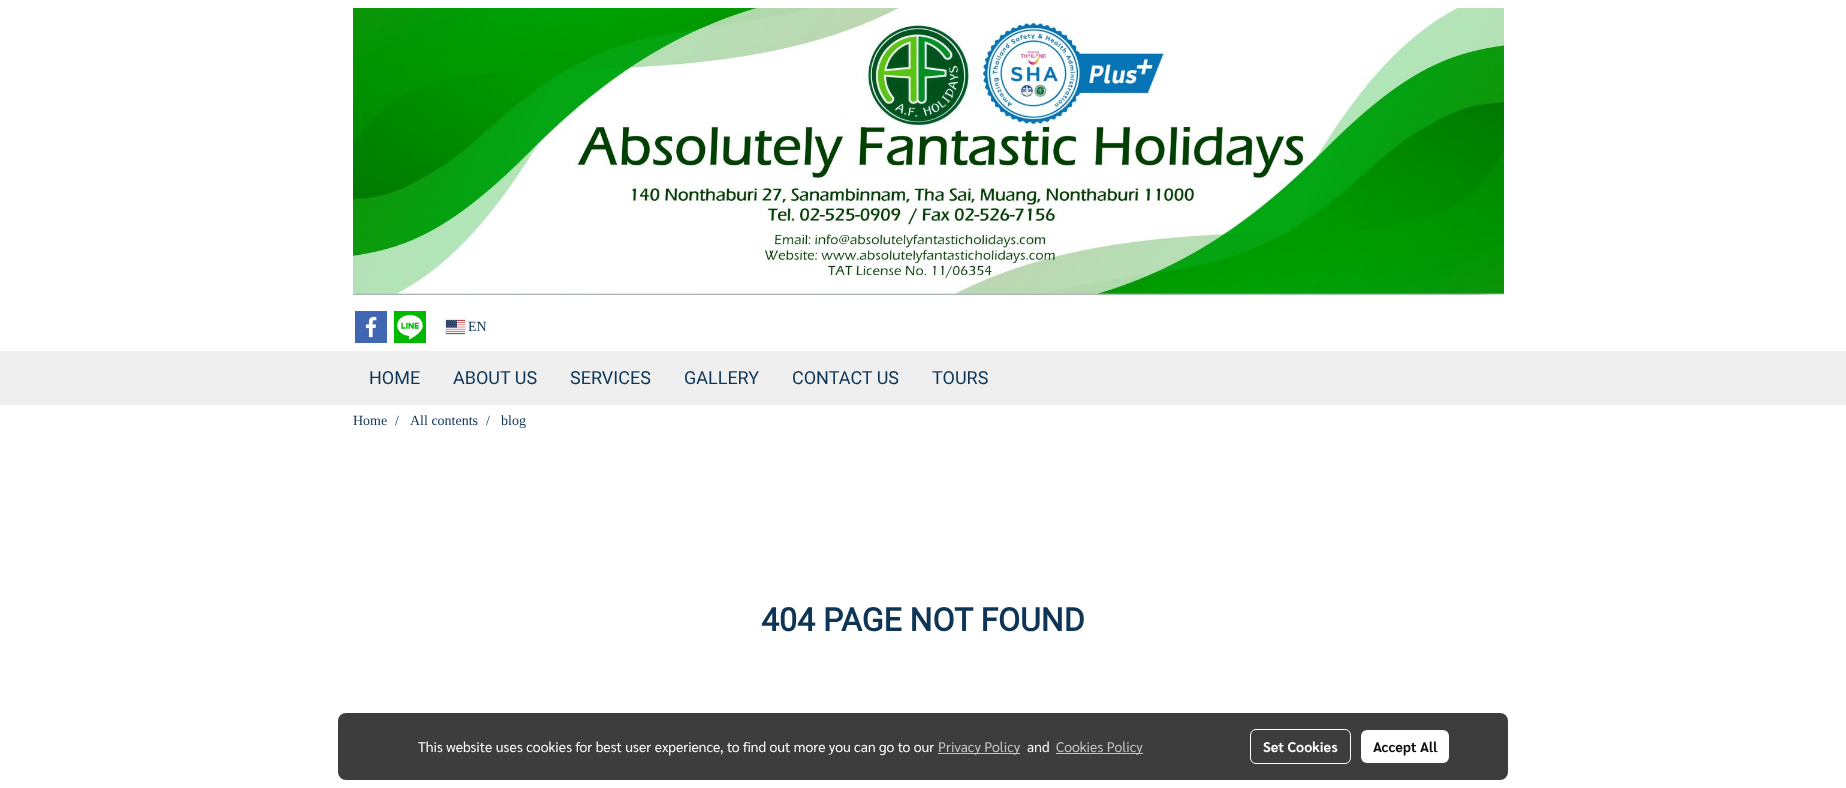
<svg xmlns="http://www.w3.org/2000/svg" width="1846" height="788">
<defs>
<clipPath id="clip1"><path d="M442 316h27v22h-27zm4 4h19v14h-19z" clip-rule="evenodd"/></clipPath>
</defs>
<rect width="100%" height="100%" fill="#fff"/>
<rect y="351" width="1846" height="54" fill="#efefef"/>
<image x="353" y="8" width="1151" height="287" href="media/1.png"/>
<rect x="355" y="311" width="32" height="32" fill="#4267b2"/>
<image x="365" y="316" width="12" height="22" href="media/2.png"/>
<rect x="394" y="311" width="32" height="32" fill="#00b800"/>
<image x="397" y="315" width="26" height="25" href="media/3.png"/>
<g clip-path="url(#clip1)">
<rect x="446" y="320" width="19" height="14" fill="#00000040" filter="blur(1px)"/>
</g>
<image x="446" y="320" width="19" height="14" href="media/4.png"/>
<text x="468" y="331" style="font-family:Liberation Serif;font-size:14px;fill:#0e3556">EN</text>
<text x="369" y="384" style="font-family:Roboto;font-size:18px;fill:#0e3556">HOME</text>
<text x="453" y="384" style="font-family:Roboto;font-size:18px;fill:#0e3556">ABOUT US</text>
<text x="570" y="384" style="font-family:Roboto;font-size:18px;fill:#0e3556">SERVICES</text>
<text x="684" y="384" style="font-family:Roboto;font-size:18px;fill:#0e3556">GALLERY</text>
<text x="792" y="384" style="font-family:Roboto;font-size:18px;fill:#0e3556">CONTACT US</text>
<text x="932" y="384" style="font-family:Roboto;font-size:18px;fill:#0e3556">TOURS</text>
<text x="353" y="425" style="font-family:Liberation Serif;font-size:14px;fill:#0e3556">Home</text>
<text x="395" y="425" style="font-family:Liberation Serif;font-size:14px;fill:#0e3556">/</text>
<text x="410" y="425" style="font-family:Liberation Serif;font-size:14px;fill:#0e3556">All contents</text>
<text x="486" y="425" style="font-family:Liberation Serif;font-size:14px;fill:#0e3556">/</text>
<text x="501" y="425" style="font-family:Liberation Serif;font-size:14px;fill:#0e3556">blog</text>
<text x="761" y="631" style="font-family:Roboto;font-size:32px;font-weight:bold;fill:#0e3556">404 PAGE NOT FOUND</text>
<rect x="338" y="713" width="1170" height="67" rx="8" fill="#3d3d3d"/>
<text x="418" y="752" style="font-family:Sarabun;font-size:14px;fill:#fff">This website uses cookies for best user experience, to find out more you can go to our</text>
<rect x="938" y="753" width="82" height="1" fill="#c5c5c5"/>
<text x="938" y="752" style="font-family:Sarabun;font-size:14px;fill:#c5c5c5">Privacy Policy</text>
<text x="1027" y="752" style="font-family:Sarabun;font-size:14px;fill:#fff">and</text>
<rect x="1056" y="753" width="87" height="1" fill="#c5c5c5"/>
<text x="1056" y="752" style="font-family:Sarabun;font-size:14px;fill:#c5c5c5">Cookies Policy</text>
<rect x="1250.5" y="729.5" width="100" height="34" rx="5.5" fill="none" stroke="#fff"/>
<text x="1263" y="752" style="font-family:Sarabun;font-size:14px;font-weight:bold;fill:#fff">Set Cookies</text>
<rect x="1361" y="730" width="88" height="33" rx="6" fill="#fff"/>
<text x="1373" y="752" style="font-family:Sarabun;font-size:14px;font-weight:bold;fill:#0d0d0d">Accept All</text>
</svg>
